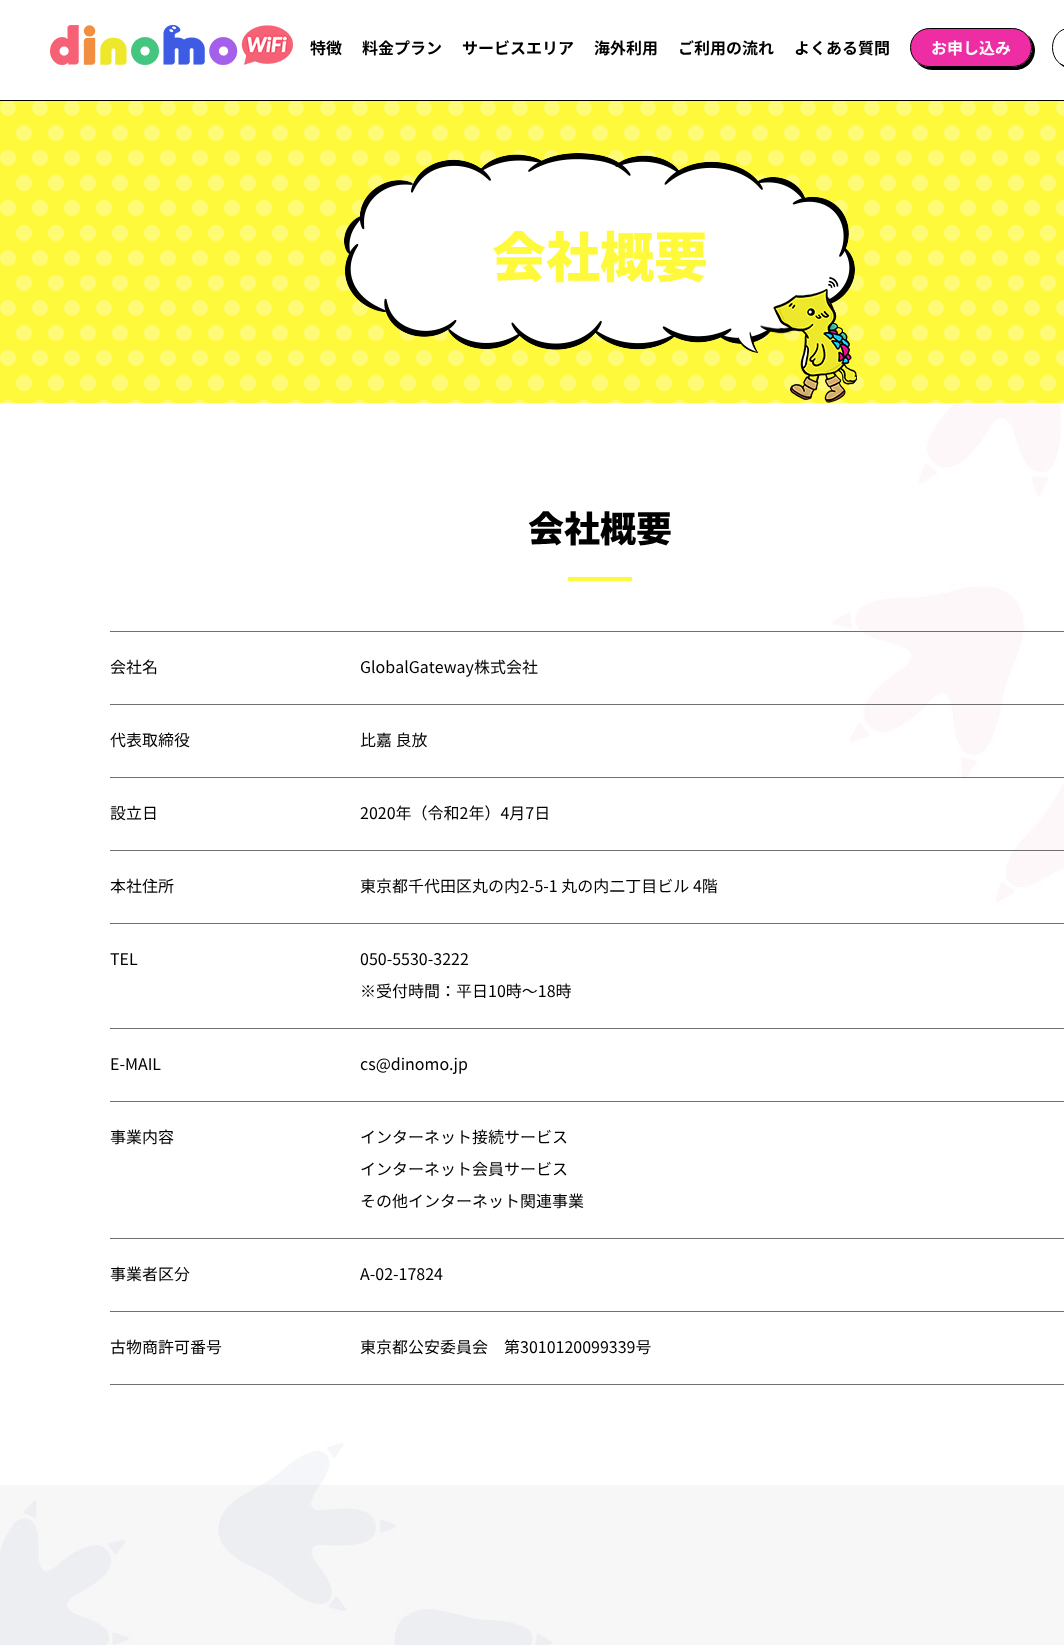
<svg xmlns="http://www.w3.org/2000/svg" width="1064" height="1645">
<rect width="100%" height="100%" fill="#fff"/>
<image x="0" y="403" width="1064" height="1242" href="media/1.png"/>
<rect y="100" width="1064" height="1" fill="#000"/>
<image x="50" y="25" width="243" height="40" href="media/2.png"/>
<text x="310" y="54" style="font-family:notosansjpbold;font-size:16px;font-weight:bold;fill:#000">特徴</text>
<text x="362" y="54" style="font-family:notosansjpbold;font-size:16px;font-weight:bold;fill:#000">料金プラン</text>
<text x="462" y="54" style="font-family:notosansjpbold;font-size:16px;font-weight:bold;fill:#000">サービスエリア</text>
<text x="594" y="54" style="font-family:notosansjpbold;font-size:16px;font-weight:bold;fill:#000">海外利用</text>
<text x="678" y="54" style="font-family:notosansjpbold;font-size:16px;font-weight:bold;fill:#000">ご利用の流れ</text>
<text x="794" y="54" style="font-family:notosansjpbold;font-size:16px;font-weight:bold;fill:#000">よくある質問</text>
<path d="M917 63c4 4 9 7 15 7h84c10 0 19-9 19-20c0-6-3-11-7-15c2 4 4 8 4 13c0 10-9 19-20 19h-82c-5 0-9-2-13-4z" fill="#000"/>
<rect x="910.5" y="28.5" width="121" height="38" rx="19" fill="#ee2ca3" stroke="#000"/>
<text x="931" y="54" style="font-family:notosansjpbold;font-size:16px;font-weight:bold;fill:#fff">お申し込み</text>
<path d="M1059 63c4 4 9 7 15 7h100c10 0 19-9 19-20c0-6-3-11-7-15c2 4 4 8 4 13c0 10-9 19-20 19h-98c-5 0-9-2-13-4z" fill="#000"/>
<rect x="1052.5" y="28.5" width="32" height="38" rx="19" fill="none" stroke="#000"/>
<rect y="101" width="1064" height="302" fill="#fff93b"/>
<image x="0" y="101" width="1064" height="302" href="media/3.png"/>
<image x="344" y="153" width="513" height="250" href="media/4.png"/>
<text x="492" y="277" style="font-family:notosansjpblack;font-size:54px;font-weight:900;fill:#fff93b">会社概要</text>
<text x="528" y="542" style="font-family:notosansjpblack;font-size:36px;font-weight:900;fill:#000">会社概要</text>
<rect x="568" y="577" width="64" height="4" fill="#fff93b"/>
<rect x="110" y="631" width="954" height="1" fill="#707070"/>
<rect x="110" y="704" width="954" height="1" fill="#707070"/>
<text x="110" y="673" style="font-family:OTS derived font;font-size:16px;fill:#000">会社名</text>
<text x="360" y="673" style="font-family:OTS derived font;font-size:16px;fill:#000">GlobalGateway株式会社</text>
<rect x="110" y="777" width="954" height="1" fill="#707070"/>
<text x="110" y="746" style="font-family:OTS derived font;font-size:16px;fill:#000">代表取締役</text>
<text x="360" y="746" style="font-family:OTS derived font;font-size:16px;fill:#000">比嘉 良放</text>
<rect x="110" y="850" width="954" height="1" fill="#707070"/>
<text x="110" y="819" style="font-family:OTS derived font;font-size:16px;fill:#000">設立日</text>
<text x="360" y="819" style="font-family:OTS derived font;font-size:16px;fill:#000">2020年（令和2年）4月7日</text>
<rect x="110" y="923" width="954" height="1" fill="#707070"/>
<text x="110" y="892" style="font-family:OTS derived font;font-size:16px;fill:#000">本社住所</text>
<text x="360" y="892" style="font-family:OTS derived font;font-size:16px;fill:#000">東京都千代田区丸の内2-5-1 丸の内二丁目ビル 4階</text>
<rect x="110" y="1028" width="954" height="1" fill="#707070"/>
<text x="110" y="965" style="font-family:OTS derived font;font-size:16px;fill:#000">TEL</text>
<text x="360" y="965" style="font-family:OTS derived font;font-size:16px;fill:#000">050-5530-3222</text>
<text x="360" y="997" style="font-family:OTS derived font;font-size:16px;fill:#000">※受付時間：平日10時～18時</text>
<rect x="110" y="1101" width="954" height="1" fill="#707070"/>
<text x="110" y="1070" style="font-family:OTS derived font;font-size:16px;fill:#000">E-MAIL</text>
<text x="360" y="1070" style="font-family:OTS derived font;font-size:16px;fill:#000">cs@dinomo.jp</text>
<rect x="110" y="1238" width="954" height="1" fill="#707070"/>
<text x="110" y="1143" style="font-family:OTS derived font;font-size:16px;fill:#000">事業内容</text>
<text x="360" y="1143" style="font-family:OTS derived font;font-size:16px;fill:#000">インターネット接続サービス</text>
<text x="360" y="1175" style="font-family:OTS derived font;font-size:16px;fill:#000">インターネット会員サービス</text>
<text x="360" y="1207" style="font-family:OTS derived font;font-size:16px;fill:#000">その他インターネット関連事業</text>
<rect x="110" y="1311" width="954" height="1" fill="#707070"/>
<text x="110" y="1280" style="font-family:OTS derived font;font-size:16px;fill:#000">事業者区分</text>
<text x="360" y="1280" style="font-family:OTS derived font;font-size:16px;fill:#000">A-02-17824</text>
<rect x="110" y="1384" width="954" height="1" fill="#707070"/>
<text x="110" y="1353" style="font-family:OTS derived font;font-size:16px;fill:#000">古物商許可番号</text>
<text x="360" y="1353" style="font-family:OTS derived font;font-size:16px;fill:#000">東京都公安委員会　第3010120099339号</text>
<rect y="1485" width="1064" height="160" fill="#00000008"/>
</svg>
